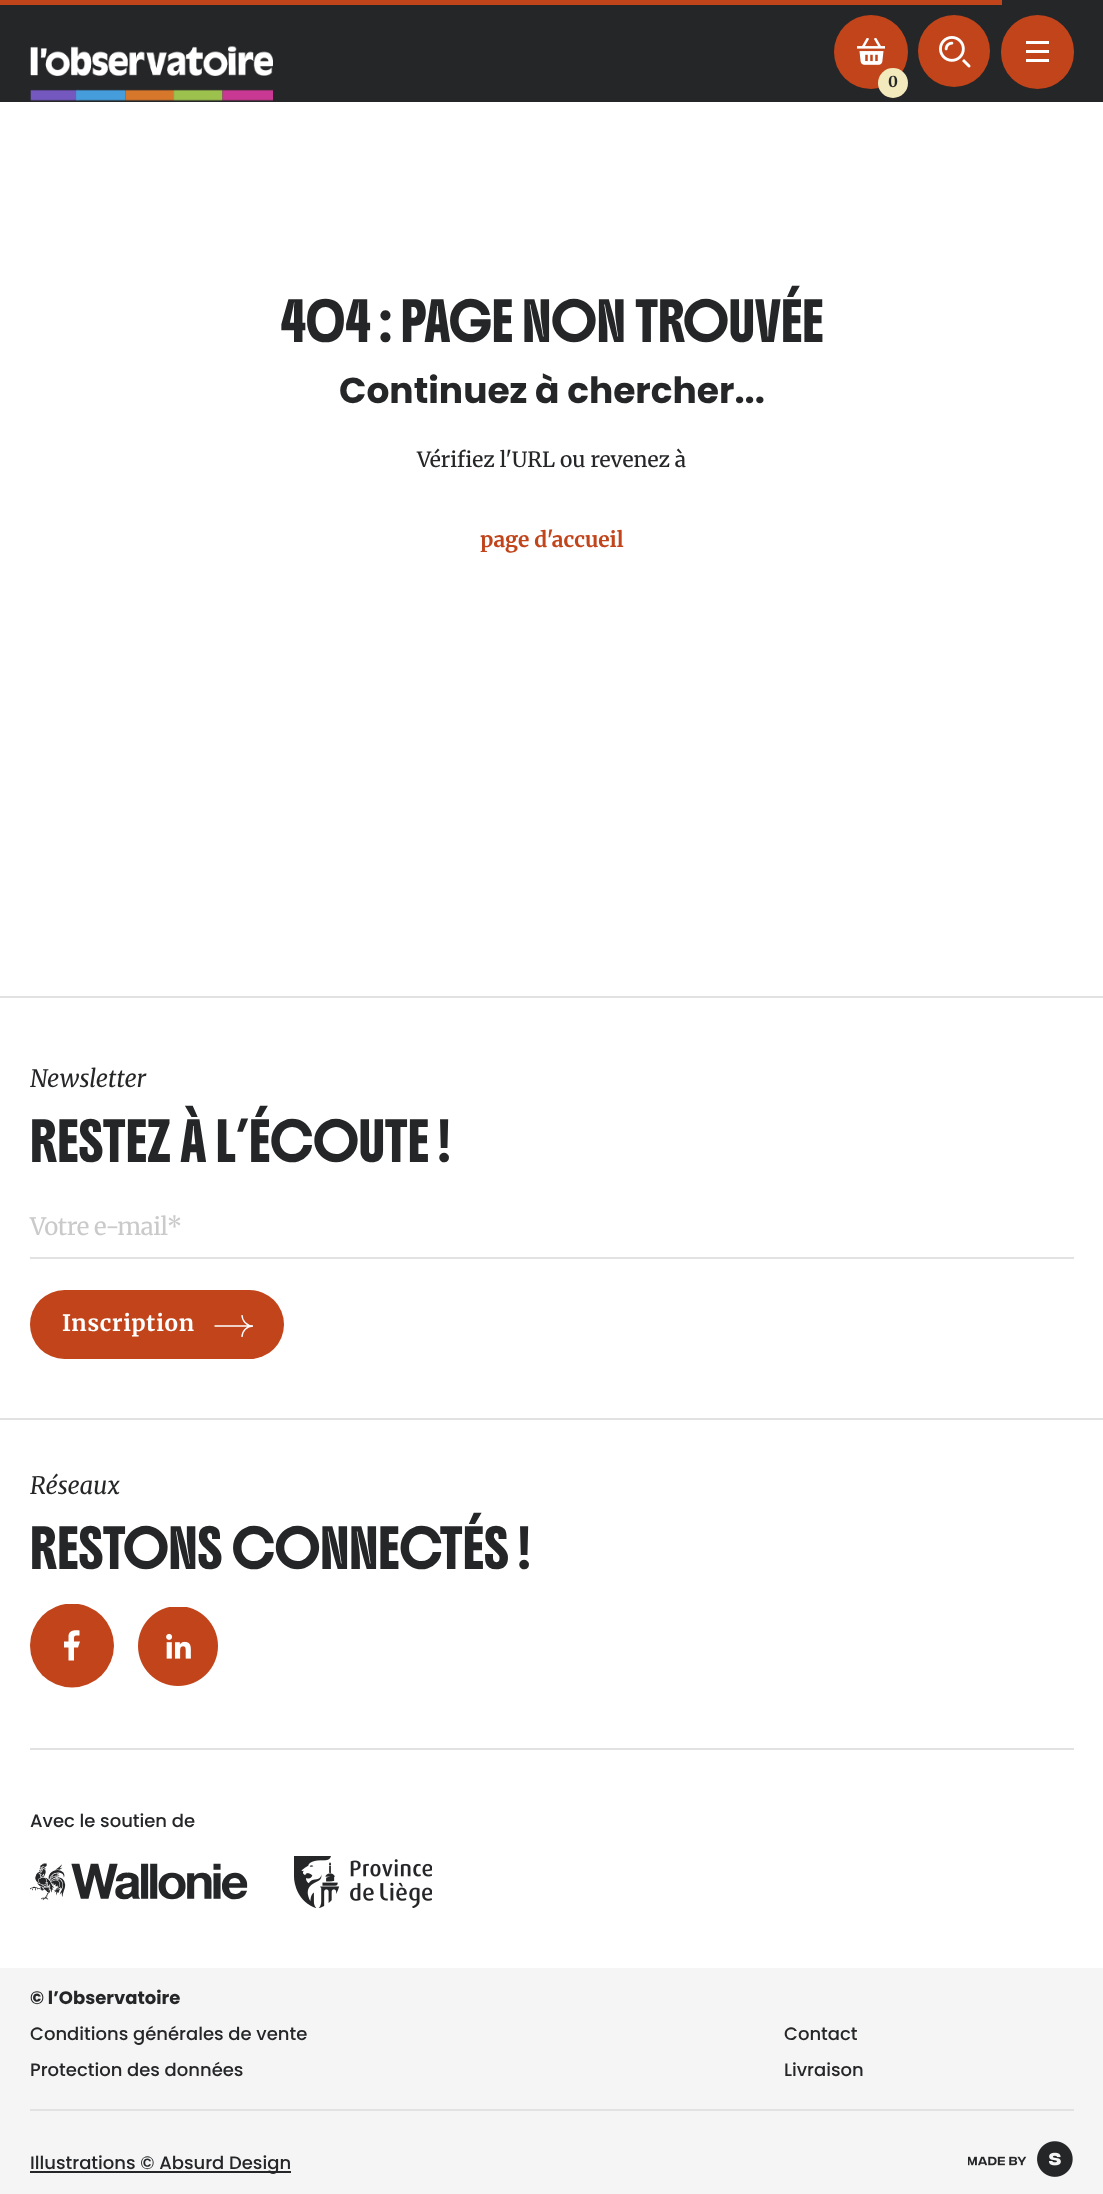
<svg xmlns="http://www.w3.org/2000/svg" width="1103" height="2194">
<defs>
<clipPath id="clip1"><rect x="30" y="1604" width="84" height="84"/></clipPath>
</defs>
<rect width="100%" height="100%" fill="#fff"/>
<rect width="1103" height="102" fill="#252628"/>
<rect width="1002" height="5" fill="#c1441b"/>
<image x="30" y="46" width="243" height="55" href="media/1.png"/>
<circle cx="871" cy="52" r="37" fill="#c1441b"/>
<image x="857" y="38" width="28" height="27" href="media/2.png"/>
<circle cx="893" cy="83" r="15" fill="#f2eabc"/>
<text x="888" y="87" style="font-family:Merriweather;font-size:15px;font-weight:bold;fill:#252628">0</text>
<circle cx="954" cy="51" r="36" fill="#c1441b"/>
<image x="939" y="36" width="32" height="32" href="media/3.png"/>
<rect x="1001" y="15" width="73" height="74" rx="36.5" fill="#c1441b"/>
<rect x="1026" y="41" width="23" height="3" fill="#fff"/>
<rect x="1026" y="50" width="23" height="3" fill="#fff"/>
<rect x="1026" y="59" width="23" height="3" fill="#fff"/>
<text x="281" y="342" style="font-family:Boldonse;font-size:36px;font-weight:bold;fill:#252628">404 : PAGE NON TROUVÉE</text>
<text x="339" y="403" style="font-family:Poppins;font-size:36px;font-weight:bold;fill:#252628">Continuez à chercher...</text>
<text x="417" y="467" style="font-family:Merriweather;font-size:21px;font-weight:500;fill:#252628">Vérifiez l'URL ou revenez à</text>
<text x="480" y="547" style="font-family:Merriweather;font-size:21px;font-weight:bold;fill:#c1441b">page d'accueil</text>
<rect y="996" width="1103" height="2" fill="#e2e2e2"/>
<text x="30" y="1087" style="font-family:Merriweather;font-size:24px;font-style:italic;fill:#252628">Newsletter</text>
<text x="30" y="1162" style="font-family:Boldonse;font-size:36px;font-weight:bold;fill:#252628">RESTEZ À L’ÉCOUTE !</text>
<rect x="30" y="1257" width="1044" height="2" fill="#e2e2e2"/>
<text x="30" y="1235" style="font-family:Merriweather;font-size:24px;letter-spacing:-0.4px;fill:#cacaca">Votre e-mail*</text>
<rect x="30" y="1290" width="254" height="69" rx="34.5" fill="#c1441b"/>
<text x="62" y="1331" style="font-family:Merriweather;font-size:22.5px;font-weight:bold;letter-spacing:0.75px;fill:#fff">Inscription</text>
<path d="M214.5 1326h38.5m0 0c-6 0-11-5-11-11m11 11c-6 0-11 5-11 11" fill="none" stroke="#fff" stroke-width="1.3"/>
<text x="30" y="1494" style="font-family:Merriweather;font-size:24px;font-style:italic;fill:#252628">Réseaux</text>
<text x="30" y="1569" style="font-family:Boldonse;font-size:36px;font-weight:bold;fill:#252628">RESTONS CONNECTÉS !</text>
<g clip-path="url(#clip1)">
<circle cx="72" cy="1645.5" r="42" fill="#c1441b"/>
</g>
<path d="M68.5 1660.5v-13h-4.5v-6h4.5v-6c1-5.5 6.5-5.5 11-5v5c-6 0-5.5 0-5.5 6h6l-2 6h-4v13z" fill="#fff"/>
<image x="138" y="1607" width="80" height="79" href="media/4.png"/>
<rect x="30" y="1748" width="1044" height="2" fill="#e2e2e2"/>
<text x="30" y="1827" style="font-family:Poppins;font-size:18px;font-weight:500;fill:#252628">Avec le soutien de</text>
<image x="30" y="1863" width="218" height="38" href="media/5.png"/>
<image x="294" y="1856" width="138" height="52" href="media/6.png"/>
<rect y="1418" width="1103" height="2" fill="#e2e2e2"/>
<rect y="1968" width="1103" height="226" fill="#f5f5f5"/>
<text x="30" y="2004" style="font-family:Poppins;font-size:18px;font-weight:bold;fill:#252628">© l’Observatoire</text>
<text x="30" y="2040" style="font-family:Poppins;font-size:18px;font-weight:500;fill:#252628">Conditions générales de vente</text>
<text x="784" y="2040" style="font-family:Poppins;font-size:18px;font-weight:500;fill:#252628">Contact</text>
<text x="30" y="2076" style="font-family:Poppins;font-size:18px;font-weight:500;fill:#252628">Protection des données</text>
<text x="784" y="2076" style="font-family:Poppins;font-size:18px;font-weight:500;fill:#252628">Livraison</text>
<rect x="30" y="2171" width="261" height="2" fill="#252628"/>
<text x="30" y="2169" style="font-family:Poppins;font-size:18px;font-weight:500;fill:#252628">Illustrations © Absurd Design</text>
<rect x="30" y="2109" width="1044" height="2" fill="#e2e2e2"/>
<image x="968" y="2141" width="105" height="36" href="media/7.png"/>
</svg>
